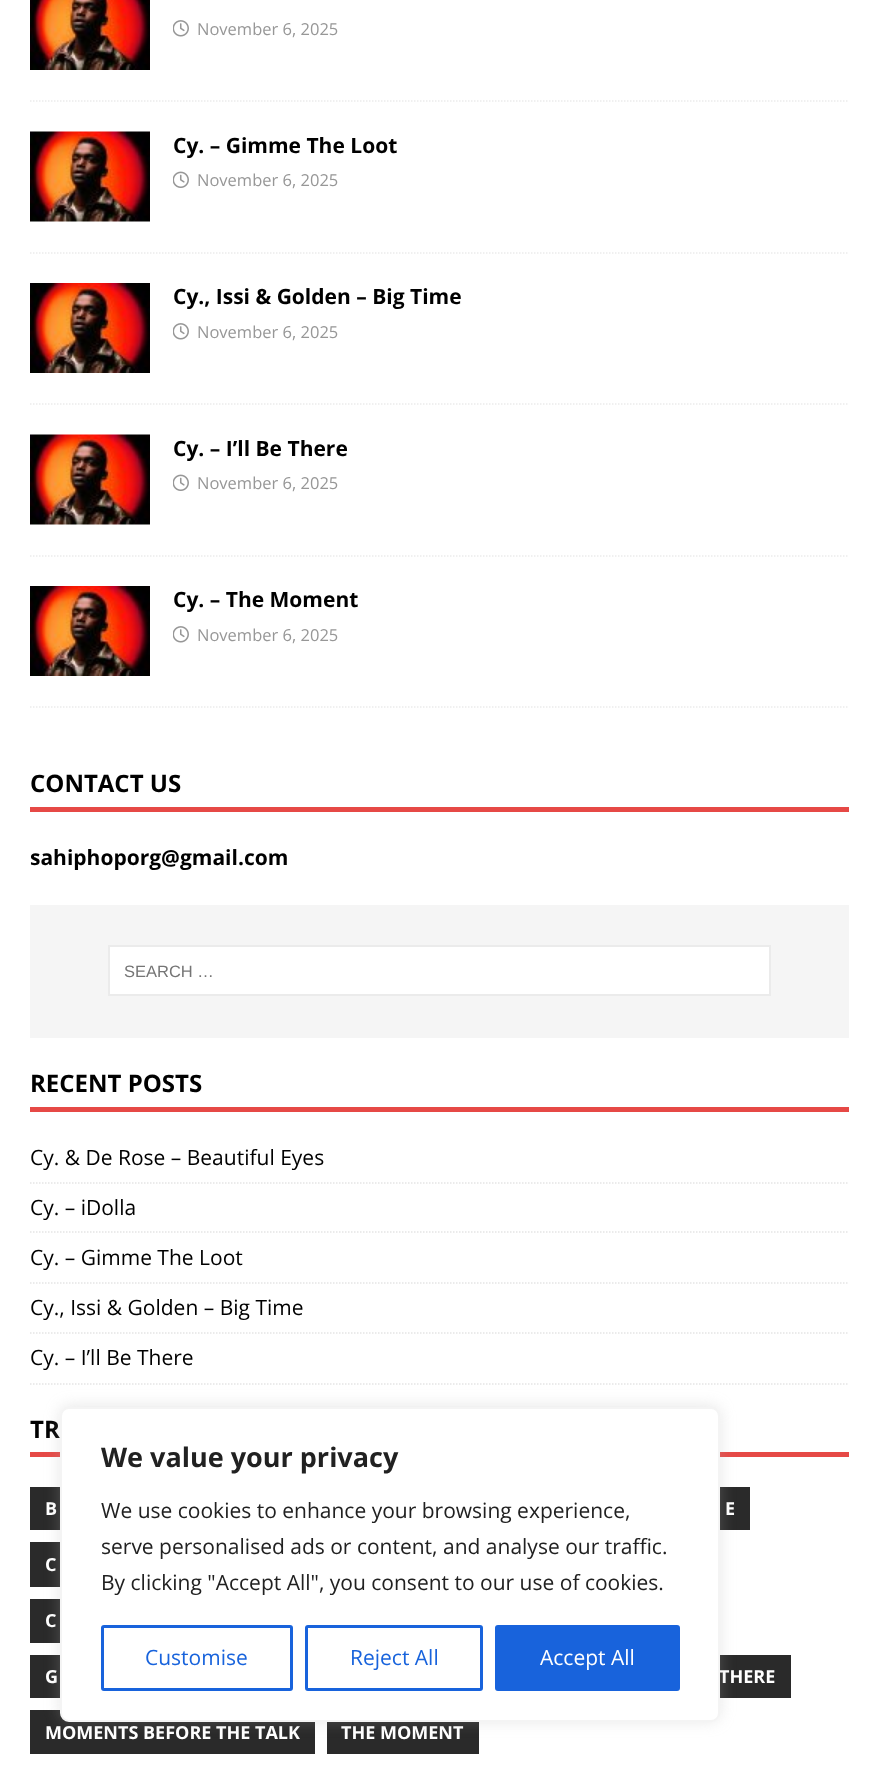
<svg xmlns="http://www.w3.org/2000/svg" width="878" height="1782">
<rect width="100%" height="100%" fill="#fff"/>
<path d="M30 101h819" fill="none" stroke="#ebebeb" stroke-width="1.5" stroke-dasharray="1.5 1.5"/>
<image x="30" y="0" width="120" height="70" href="media/1.png"/>
<image x="173" y="20" width="16" height="17" href="media/2.png"/>
<text x="197" y="35" style="font-family:Open Sans;font-size:16.5px;fill:#979797">November 6, 2025</text>
<path d="M30 253h819" fill="none" stroke="#ebebeb" stroke-width="1.5" stroke-dasharray="1.5 1.5"/>
<image x="30" y="131" width="120" height="91" href="media/3.png"/>
<text x="173" y="153" style="font-family:Open Sans;font-size:21px;font-weight:bold;fill:#000">Cy. – Gimme The Loot</text>
<image x="173" y="171" width="16" height="17" href="media/4.png"/>
<text x="197" y="186" style="font-family:Open Sans;font-size:16.5px;fill:#979797">November 6, 2025</text>
<path d="M30 404h819" fill="none" stroke="#ebebeb" stroke-width="1.5" stroke-dasharray="1.5 1.5"/>
<image x="30" y="283" width="120" height="90" href="media/5.png"/>
<text x="173" y="304" style="font-family:Open Sans;font-size:21px;font-weight:bold;fill:#000">Cy., Issi &amp; Golden – Big Time</text>
<image x="173" y="323" width="16" height="17" href="media/2.png"/>
<text x="197" y="338" style="font-family:Open Sans;font-size:16.5px;fill:#979797">November 6, 2025</text>
<path d="M30 556h819" fill="none" stroke="#ebebeb" stroke-width="1.5" stroke-dasharray="1.5 1.5"/>
<image x="30" y="434" width="120" height="91" href="media/3.png"/>
<text x="173" y="456" style="font-family:Open Sans;font-size:21px;font-weight:bold;fill:#000">Cy. – I’ll Be There</text>
<image x="173" y="474" width="16" height="17" href="media/4.png"/>
<text x="197" y="489" style="font-family:Open Sans;font-size:16.5px;fill:#979797">November 6, 2025</text>
<path d="M30 707h819" fill="none" stroke="#ebebeb" stroke-width="1.5" stroke-dasharray="1.5 1.5"/>
<image x="30" y="586" width="120" height="90" href="media/5.png"/>
<text x="173" y="607" style="font-family:Open Sans;font-size:21px;font-weight:bold;fill:#000">Cy. – The Moment</text>
<image x="173" y="626" width="16" height="17" href="media/2.png"/>
<text x="197" y="641" style="font-family:Open Sans;font-size:16.5px;fill:#979797">November 6, 2025</text>
<rect x="30" y="807" width="819" height="5" fill="#e64946"/>
<text x="30" y="792" style="font-family:Open Sans;font-size:24px;font-weight:bold;fill:#000">CONTACT US</text>
<text x="30" y="865" style="font-family:Open Sans;font-size:21px;font-weight:bold;fill:#000">sahiphoporg@gmail.com</text>
<rect x="30" y="905" width="819" height="133" fill="#f5f5f5"/>
<rect x="109" y="946" width="661" height="49" fill="#fff" stroke="#ebebeb" stroke-width="2"/>
<text x="124" y="977" style="font-family:Liberation Sans;font-size:16.5px;fill:#757575">SEARCH …</text>
<rect x="30" y="1107" width="819" height="5" fill="#e64946"/>
<text x="30" y="1092" style="font-family:Open Sans;font-size:24px;font-weight:bold;fill:#000">RECENT POSTS</text>
<path d="M30 1183h819" fill="none" stroke="#e5e5e5" stroke-width="1.5" stroke-dasharray="1.5 1.5"/>
<text x="30" y="1165" style="font-family:Open Sans;font-size:21px;fill:#000">Cy. &amp; De Rose – Beautiful Eyes</text>
<path d="M30 1232h819" fill="none" stroke="#e5e5e5" stroke-width="1.5" stroke-dasharray="1.5 1.5"/>
<text x="30" y="1215" style="font-family:Open Sans;font-size:21px;fill:#000">Cy. – iDolla</text>
<path d="M30 1283h819" fill="none" stroke="#e5e5e5" stroke-width="1.5" stroke-dasharray="1.5 1.5"/>
<text x="30" y="1265" style="font-family:Open Sans;font-size:21px;fill:#000">Cy. – Gimme The Loot</text>
<path d="M30 1333h819" fill="none" stroke="#e5e5e5" stroke-width="1.5" stroke-dasharray="1.5 1.5"/>
<text x="30" y="1315" style="font-family:Open Sans;font-size:21px;fill:#000">Cy., Issi &amp; Golden – Big Time</text>
<path d="M30 1384h819" fill="none" stroke="#e5e5e5" stroke-width="1.5" stroke-dasharray="1.5 1.5"/>
<text x="30" y="1365" style="font-family:Open Sans;font-size:21px;fill:#000">Cy. – I’ll Be There</text>
<rect x="30" y="1452" width="819" height="5" fill="#e64946"/>
<text x="30" y="1438" style="font-family:Open Sans;font-size:24px;font-weight:bold;fill:#000">TR</text>
<rect x="30" y="1487" width="30" height="43" fill="#2a2a2a"/>
<text x="45" y="1515" style="font-family:Open Sans;font-size:18px;font-weight:bold;fill:#fff">B</text>
<rect x="720" y="1487" width="30" height="43" fill="#2a2a2a"/>
<text x="725" y="1515" style="font-family:Open Sans;font-size:18px;font-weight:bold;fill:#fff">E</text>
<rect x="30" y="1542" width="30" height="45" fill="#2a2a2a"/>
<text x="45" y="1571" style="font-family:Open Sans;font-size:18px;font-weight:bold;fill:#fff">C</text>
<rect x="30" y="1599" width="30" height="44" fill="#2a2a2a"/>
<text x="45" y="1627" style="font-family:Open Sans;font-size:18px;font-weight:bold;fill:#fff">C</text>
<rect x="30" y="1655" width="30" height="43" fill="#2a2a2a"/>
<text x="45" y="1683" style="font-family:Open Sans;font-size:18px;font-weight:bold;fill:#fff">G</text>
<rect x="720" y="1655" width="71" height="43" fill="#2a2a2a"/>
<text x="719" y="1683" style="font-family:Open Sans;font-size:18px;font-weight:bold;fill:#fff">THERE</text>
<rect x="30" y="1710" width="285" height="44" fill="#2a2a2a"/>
<text x="45" y="1739" style="font-family:Open Sans;font-size:18px;font-weight:bold;fill:#fff">MOMENTS BEFORE THE TALK</text>
<rect x="327" y="1722" width="152" height="32" fill="#2a2a2a"/>
<text x="341" y="1739" style="font-family:Open Sans;font-size:18px;font-weight:bold;fill:#fff">THE MOMENT</text>
<rect x="60" y="1406" width="660" height="315" rx="9" fill="#acabab4d" filter="blur(7.5px)"/>
<rect x="61" y="1408" width="658" height="313" rx="8" fill="#fff" stroke="#f4f4f4" stroke-width="2"/>
<text x="101" y="1467" style="font-family:Open Sans;font-size:27px;font-weight:bold;fill:#212121">We value your privacy</text>
<text x="101" y="1518" style="font-family:Open Sans;font-size:21px;fill:#212121">We use cookies to enhance your browsing experience,</text>
<text x="101" y="1554" style="font-family:Open Sans;font-size:21px;fill:#212121">serve personalised ads or content, and analyse our traffic.</text>
<text x="101" y="1590" style="font-family:Open Sans;font-size:21px;fill:#212121">By clicking "Accept All", you consent to our use of cookies.</text>
<rect x="102.5" y="1626.5" width="189" height="63" rx="1.5" fill="none" stroke="#1863dc" stroke-width="3"/>
<text x="145" y="1665" style="font-family:Open Sans;font-size:21px;fill:#1863dc">Customise</text>
<rect x="306.5" y="1626.5" width="175" height="63" rx="1.5" fill="none" stroke="#1863dc" stroke-width="3"/>
<text x="350" y="1665" style="font-family:Open Sans;font-size:21px;fill:#1863dc">Reject All</text>
<rect x="496.5" y="1626.5" width="182" height="63" rx="1.5" fill="#1863dc" stroke="#1863dc" stroke-width="3"/>
<text x="540" y="1665" style="font-family:Open Sans;font-size:21px;fill:#fff">Accept All</text>
</svg>
